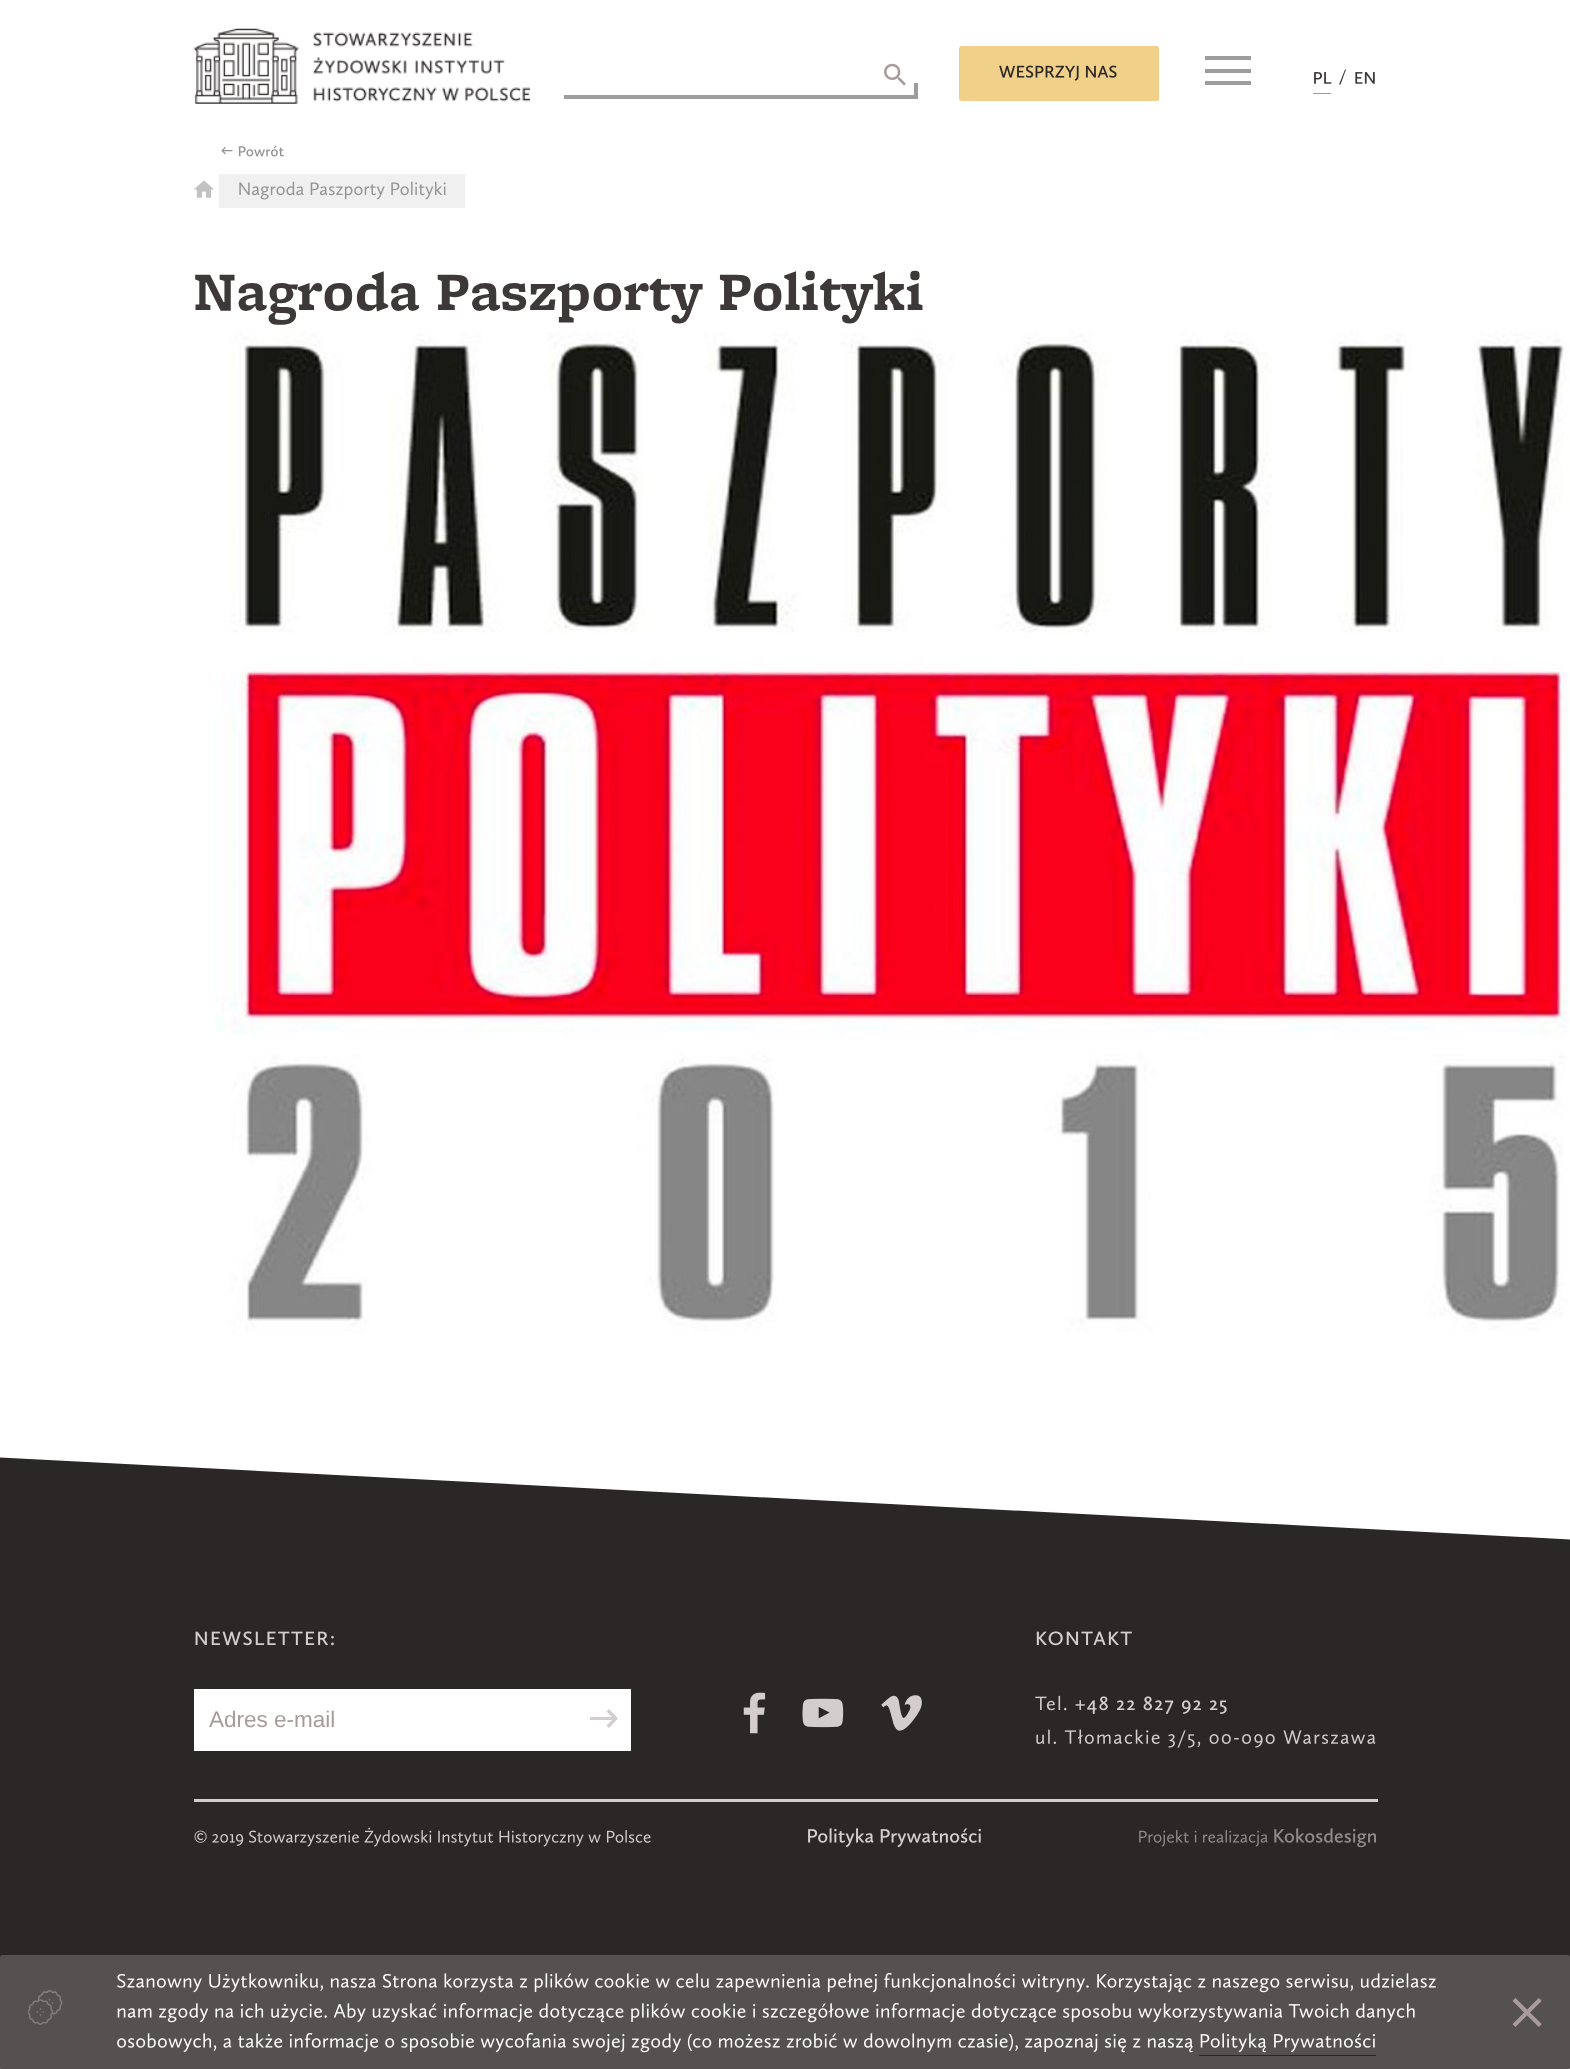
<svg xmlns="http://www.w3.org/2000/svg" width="1570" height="2069">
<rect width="100%" height="100%" fill="#fff"/>
<image x="193" y="28" width="337" height="76" href="media/1.png"/>
<image x="884" y="63" width="22" height="23" href="media/2.png"/>
<rect x="564" y="95" width="350" height="4" fill="#9f9c9c"/>
<rect x="914" y="83" width="4" height="16" fill="#9f9c9c"/>
<rect x="959" y="46" width="200" height="55" rx="2.5" fill="#f1d18a"/>
<image x="999" y="65" width="118" height="16" href="media/3.png"/>
<rect x="1205" y="69" width="46" height="4" fill="#9e9c9c"/>
<rect x="1205" y="56" width="46" height="4" fill="#9e9c9c"/>
<rect x="1205" y="81" width="46" height="4" fill="#9e9c9c"/>
<image x="1314" y="72" width="18" height="12" href="media/4.png"/>
<rect x="1313" y="93" width="18" height="1" fill="#9f9c9c"/>
<path d="M1339 84.5l6-15h1l-5.5 15z" fill="#3e3939"/>
<image x="1355" y="72" width="20" height="12" href="media/5.png"/>
<image x="221" y="147" width="12" height="8" href="media/6.png"/>
<image x="238" y="145" width="46" height="12" href="media/7.png"/>
<image x="194" y="180" width="20" height="18" href="media/8.png"/>
<rect x="219" y="174" width="246" height="34" fill="#f0f0f0"/>
<image x="239" y="181" width="207" height="19" href="media/9.png"/>
<text x="193" y="310" style="font-family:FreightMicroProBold;font-size:56.25px;fill:#3e3939">Nagroda Paszporty Polityki</text>
<image x="214" y="332" width="1356" height="1000" href="media/10.png"/>
<path d="M-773 1417l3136 164l-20 375l-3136-165z" fill="#2c2727"/>
<rect y="1832" width="1570" height="126" fill="#2c2727"/>
<image x="195" y="1631" width="139" height="15" href="media/11.png"/>
<rect x="194" y="1689" width="437" height="62" fill="#fff"/>
<text x="209" y="1727" style="font-family:Liberation Sans;font-size:22.5px;fill:#a89b9b">Adres e-mail</text>
<path d="M590 1717h22l-5.5-5.5l2.5-2.5l9 9.5l-9 9.5l-2.5-2.5l5.5-5.5h-22z" fill="#d3cdcd"/>
<image x="743" y="1692" width="23" height="42" href="media/12.png"/>
<image x="802" y="1698" width="42" height="30" href="media/13.png"/>
<image x="881" y="1695" width="41" height="36" href="media/14.png"/>
<image x="1036" y="1631" width="96" height="15" href="media/15.png"/>
<image x="1035" y="1695" width="32" height="16" href="media/16.png"/>
<image x="1075" y="1696" width="152" height="18" href="media/17.png"/>
<image x="1036" y="1729" width="340" height="19" href="media/18.png"/>
<rect x="194" y="1799" width="1184" height="3" fill="#d3cdcd"/>
<image x="194" y="1827" width="457" height="20" href="media/19.png"/>
<image x="808" y="1828" width="173" height="20" href="media/20.png"/>
<image x="1139" y="1830" width="129" height="17" href="media/21.png"/>
<image x="1274" y="1828" width="102" height="20" href="media/22.png"/>
<rect y="1955" width="1570" height="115" rx="2.5" fill="#565151"/>
<image x="28" y="1990" width="35" height="35" href="media/23.png"/>
<image x="117" y="1972" width="1319" height="21" href="media/24.png"/>
<image x="117" y="2002" width="1298" height="21" href="media/25.png"/>
<image x="117" y="2032" width="1076" height="21" href="media/26.png"/>
<image x="1200" y="2033" width="175" height="20" href="media/27.png"/>
<rect x="1199" y="2055" width="177" height="1" fill="#2c2727"/>
<image x="1512" y="1998" width="30" height="29" href="media/28.png"/>
</svg>
